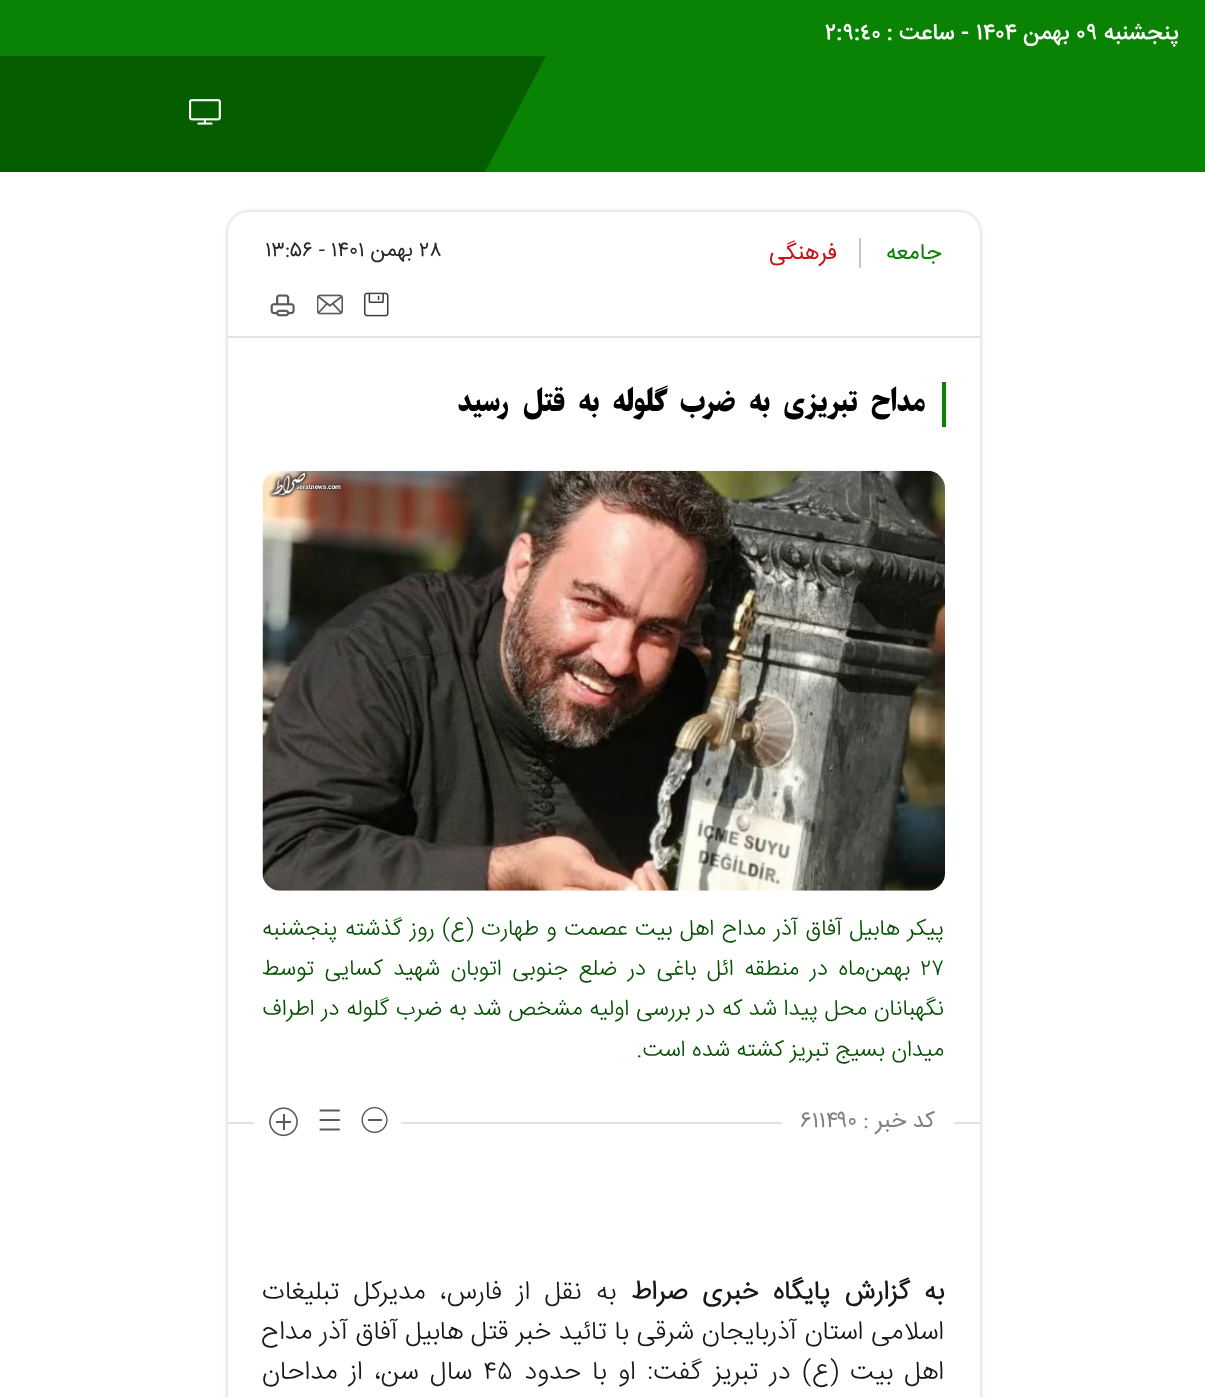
<svg xmlns="http://www.w3.org/2000/svg" width="1205" height="1398">
<defs>
<clipPath id="clip1"><path d="M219 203h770v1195h-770zm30 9h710c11.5 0 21 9.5 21 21v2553c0 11.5-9.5 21-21 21h-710c-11.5 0-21-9.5-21-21v-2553c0-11.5 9.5-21 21-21z" clip-rule="evenodd"/></clipPath>
<clipPath id="clip2"><rect x="263" y="1246" width="682" height="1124"/></clipPath>
</defs>
<rect width="100%" height="100%" fill="#fff"/>
<rect width="1205" height="56" fill="#0a8204"/>
<text x="1179" y="39" style="font-family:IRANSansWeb;font-size:22.75px;font-weight:500;direction:rtl;fill:#fff">پنجشنبه</text>
<text x="1076" y="39" style="font-family:IRANSansWeb;font-size:22.75px;font-weight:500;fill:#fff">۰۹</text>
<text x="1069" y="39" style="font-family:IRANSansWeb;font-size:22.75px;font-weight:500;direction:rtl;fill:#fff">بهمن</text>
<text x="976" y="39" style="font-family:IRANSansWeb;font-size:22.75px;font-weight:500;fill:#fff">۱۴۰۴</text>
<text x="969" y="39" style="font-family:IRANSansWeb;font-size:22.75px;font-weight:500;direction:rtl;fill:#fff">- ساعت :</text>
<text x="825" y="39" style="font-family:IRANSansWeb;font-size:22.75px;font-weight:500;fill:#fff">٢:٩:٤٠</text>
<rect x="485" y="56" width="720" height="116" fill="#0a8204"/>
<rect y="56" width="485" height="116" fill="#045e00"/>
<path d="M485 172v-116h61z" fill="#045e00"/>
<image x="189" y="99" width="32" height="26" href="media/1.png"/>
<g clip-path="url(#clip1)">
<rect x="228" y="212" width="752" height="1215" rx="21" fill="#c4c4c4" filter="blur(2.5px)"/>
</g>
<rect x="228" y="336" width="752" height="2" fill="#e2e2e2"/>
<text x="941" y="259" style="font-family:IRANSansWeb;font-size:22.75px;direction:rtl;fill:#0a8204">جامعه</text>
<rect x="859" y="238" width="2" height="30" fill="#c8c8c8"/>
<text x="837" y="259" style="font-family:IRANSansWeb;font-size:22.75px;direction:rtl;fill:#c71414">فرهنگی</text>
<text x="419" y="256" style="font-family:IRANSansWeb;font-size:21px;fill:#272727">۲۸</text>
<text x="413" y="256" style="font-family:IRANSansWeb;font-size:21px;direction:rtl;fill:#272727">بهمن</text>
<text x="265" y="256" style="font-family:IRANSansWeb;font-size:21px;fill:#272727">۱۳:۵۶ - ۱۴۰۱</text>
<image x="364" y="292" width="25" height="25" href="media/2.png"/>
<image x="317" y="294" width="26" height="21" href="media/3.png"/>
<image x="270" y="294" width="25" height="23" href="media/4.png"/>
<rect x="942" y="382" width="4" height="45" fill="#0a8204"/>
<text x="925" y="411" word-spacing="7" style="font-family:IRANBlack;font-size:28px;font-weight:900;direction:rtl;fill:#000">مداح تبریزی به ضرب گلوله به قتل رسید</text>
<image x="262" y="470" width="683" height="421" href="media/5.png"/>
<text x="944" y="935" word-spacing="1.1" style="font-family:IRANSansWeb;font-size:22.75px;font-weight:300;direction:rtl;fill:#044f00">پیکر هابیل آفاق آذر مداح اهل بیت عصمت و طهارت (ع) روز گذشته پنجشنبه</text>
<text x="920" y="975" style="font-family:IRANSansWeb;font-size:22.75px;font-weight:300;fill:#044f00">۲۷</text>
<text x="910" y="975" word-spacing="4.1" style="font-family:IRANSansWeb;font-size:22.75px;font-weight:300;direction:rtl;fill:#044f00">بهمن‌ماه در منطقه ائل باغی در ضلع جنوبی اتوبان شهید کسایی توسط</text>
<text x="944" y="1015" word-spacing="0.25" style="font-family:IRANSansWeb;font-size:22.75px;font-weight:300;direction:rtl;fill:#044f00">نگهبانان محل پیدا شد که در بررسی اولیه مشخص شد به ضرب گلوله در اطراف</text>
<text x="944" y="1056" style="font-family:IRANSansWeb;font-size:22.75px;font-weight:300;direction:rtl;fill:#044f00">میدان بسیج تبریز کشته شده است.</text>
<rect x="228" y="1122" width="752" height="2" fill="#e2e2e2"/>
<rect x="782" y="1122" width="172" height="2" fill="#fff"/>
<text x="935" y="1127" style="font-family:IRANSansWeb;font-size:22.75px;direction:rtl;fill:#808080">کد خبر :</text>
<text x="800" y="1127" style="font-family:IRANSansWeb;font-size:22.75px;fill:#808080">۶۱۱۴۹۰</text>
<rect x="254" y="1122" width="147" height="2" fill="#fff"/>
<image x="361" y="1106" width="27" height="28" href="media/6.png"/>
<path d="M320.5 1120h18.5m-18.5 9.5h18.5m-18.5-19h18.5" fill="none" stroke="#5a5a5a" stroke-width="2.1" stroke-linecap="round" stroke-linejoin="round"/>
<image x="269" y="1107" width="29" height="30" href="media/7.png"/>
<text x="944" y="1299" word-spacing="7" style="font-family:IRANSansWeb;font-size:26.25px;font-weight:bold;direction:rtl;fill:#181818">به گزارش پایگاه خبری صراط</text>
<g clip-path="url(#clip2)">
<text x="616" y="1299" word-spacing="7" style="font-family:IRANSansWeb;font-size:26.25px;font-weight:300;direction:rtl;fill:#181818">به نقل از فارس، مدیرکل تبلیغات</text>
</g>
<text x="944" y="1339" word-spacing="0.25" style="font-family:IRANSansWeb;font-size:26.25px;font-weight:300;direction:rtl;fill:#181818">اسلامی استان آذربایجان شرقی با تائید خبر قتل هابیل آفاق آذر مداح</text>
<text x="944" y="1379" word-spacing="4" style="font-family:IRANSansWeb;font-size:26.25px;font-weight:300;direction:rtl;fill:#181818">اهل بیت (ع) در تبریز گفت: او با حدود</text>
<text x="483" y="1379" style="font-family:IRANSansWeb;font-size:26.25px;font-weight:300;fill:#181818">۴۵</text>
<text x="472" y="1379" word-spacing="4" style="font-family:IRANSansWeb;font-size:26.25px;font-weight:300;direction:rtl;fill:#181818">سال سن، از مداحان</text>
</svg>
